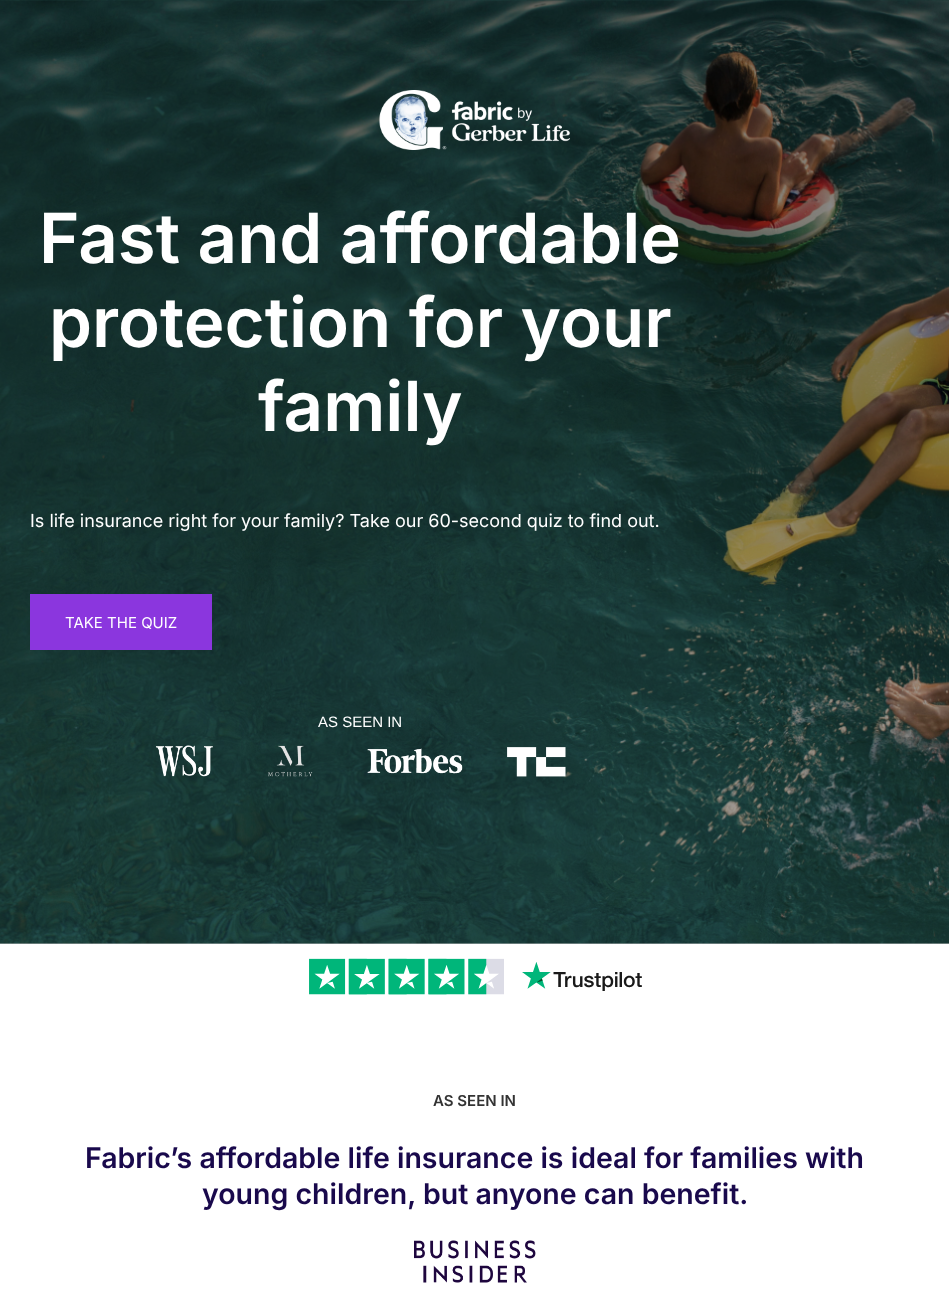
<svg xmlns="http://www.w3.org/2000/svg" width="949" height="1313">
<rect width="100%" height="100%" fill="#fff"/>
<rect y="943" width="949" height="1" fill="#d1d1d1"/>
<image x="0" y="0" width="949" height="944" href="media/1.png"/>
<image x="379" y="90" width="191" height="60" href="media/2.png"/>
<text x="39" y="263" style="font-family:Inter;font-size:69px;font-weight:600;fill:#fff">Fast and affordable</text>
<text x="49" y="347" style="font-family:Inter;font-size:69px;font-weight:600;fill:#fff">protection for your</text>
<text x="258" y="431" style="font-family:Inter;font-size:69px;font-weight:600;fill:#fff">family</text>
<text x="30" y="527" style="font-family:Inter;font-size:18px;fill:#fff">Is life insurance right for your family? Take our 60-second quiz to find out.</text>
<rect x="30" y="594" width="182" height="56" fill="#8b36de"/>
<text x="65" y="628" style="font-family:Inter;font-size:15px;fill:#fff">TAKE THE QUIZ</text>
<text x="318" y="727" style="font-family:Liberation Sans;font-size:15px;fill:#fff">AS SEEN IN</text>
<image x="156" y="745" width="410" height="32" href="media/3.png"/>
<image x="309" y="958" width="333" height="37" href="media/4.png"/>
<text x="433" y="1106" style="font-family:Inter;font-size:15px;font-weight:600;fill:#333">AS SEEN IN</text>
<text x="85" y="1168" style="font-family:Inter;font-size:28.5px;font-weight:600;fill:#19094c">Fabric’s affordable life insurance is ideal for families with</text>
<text x="202" y="1204" style="font-family:Inter;font-size:28.5px;font-weight:600;fill:#19094c">young children, but anyone can benefit.</text>
<image x="414" y="1240" width="122" height="43" href="media/5.png"/>
</svg>
